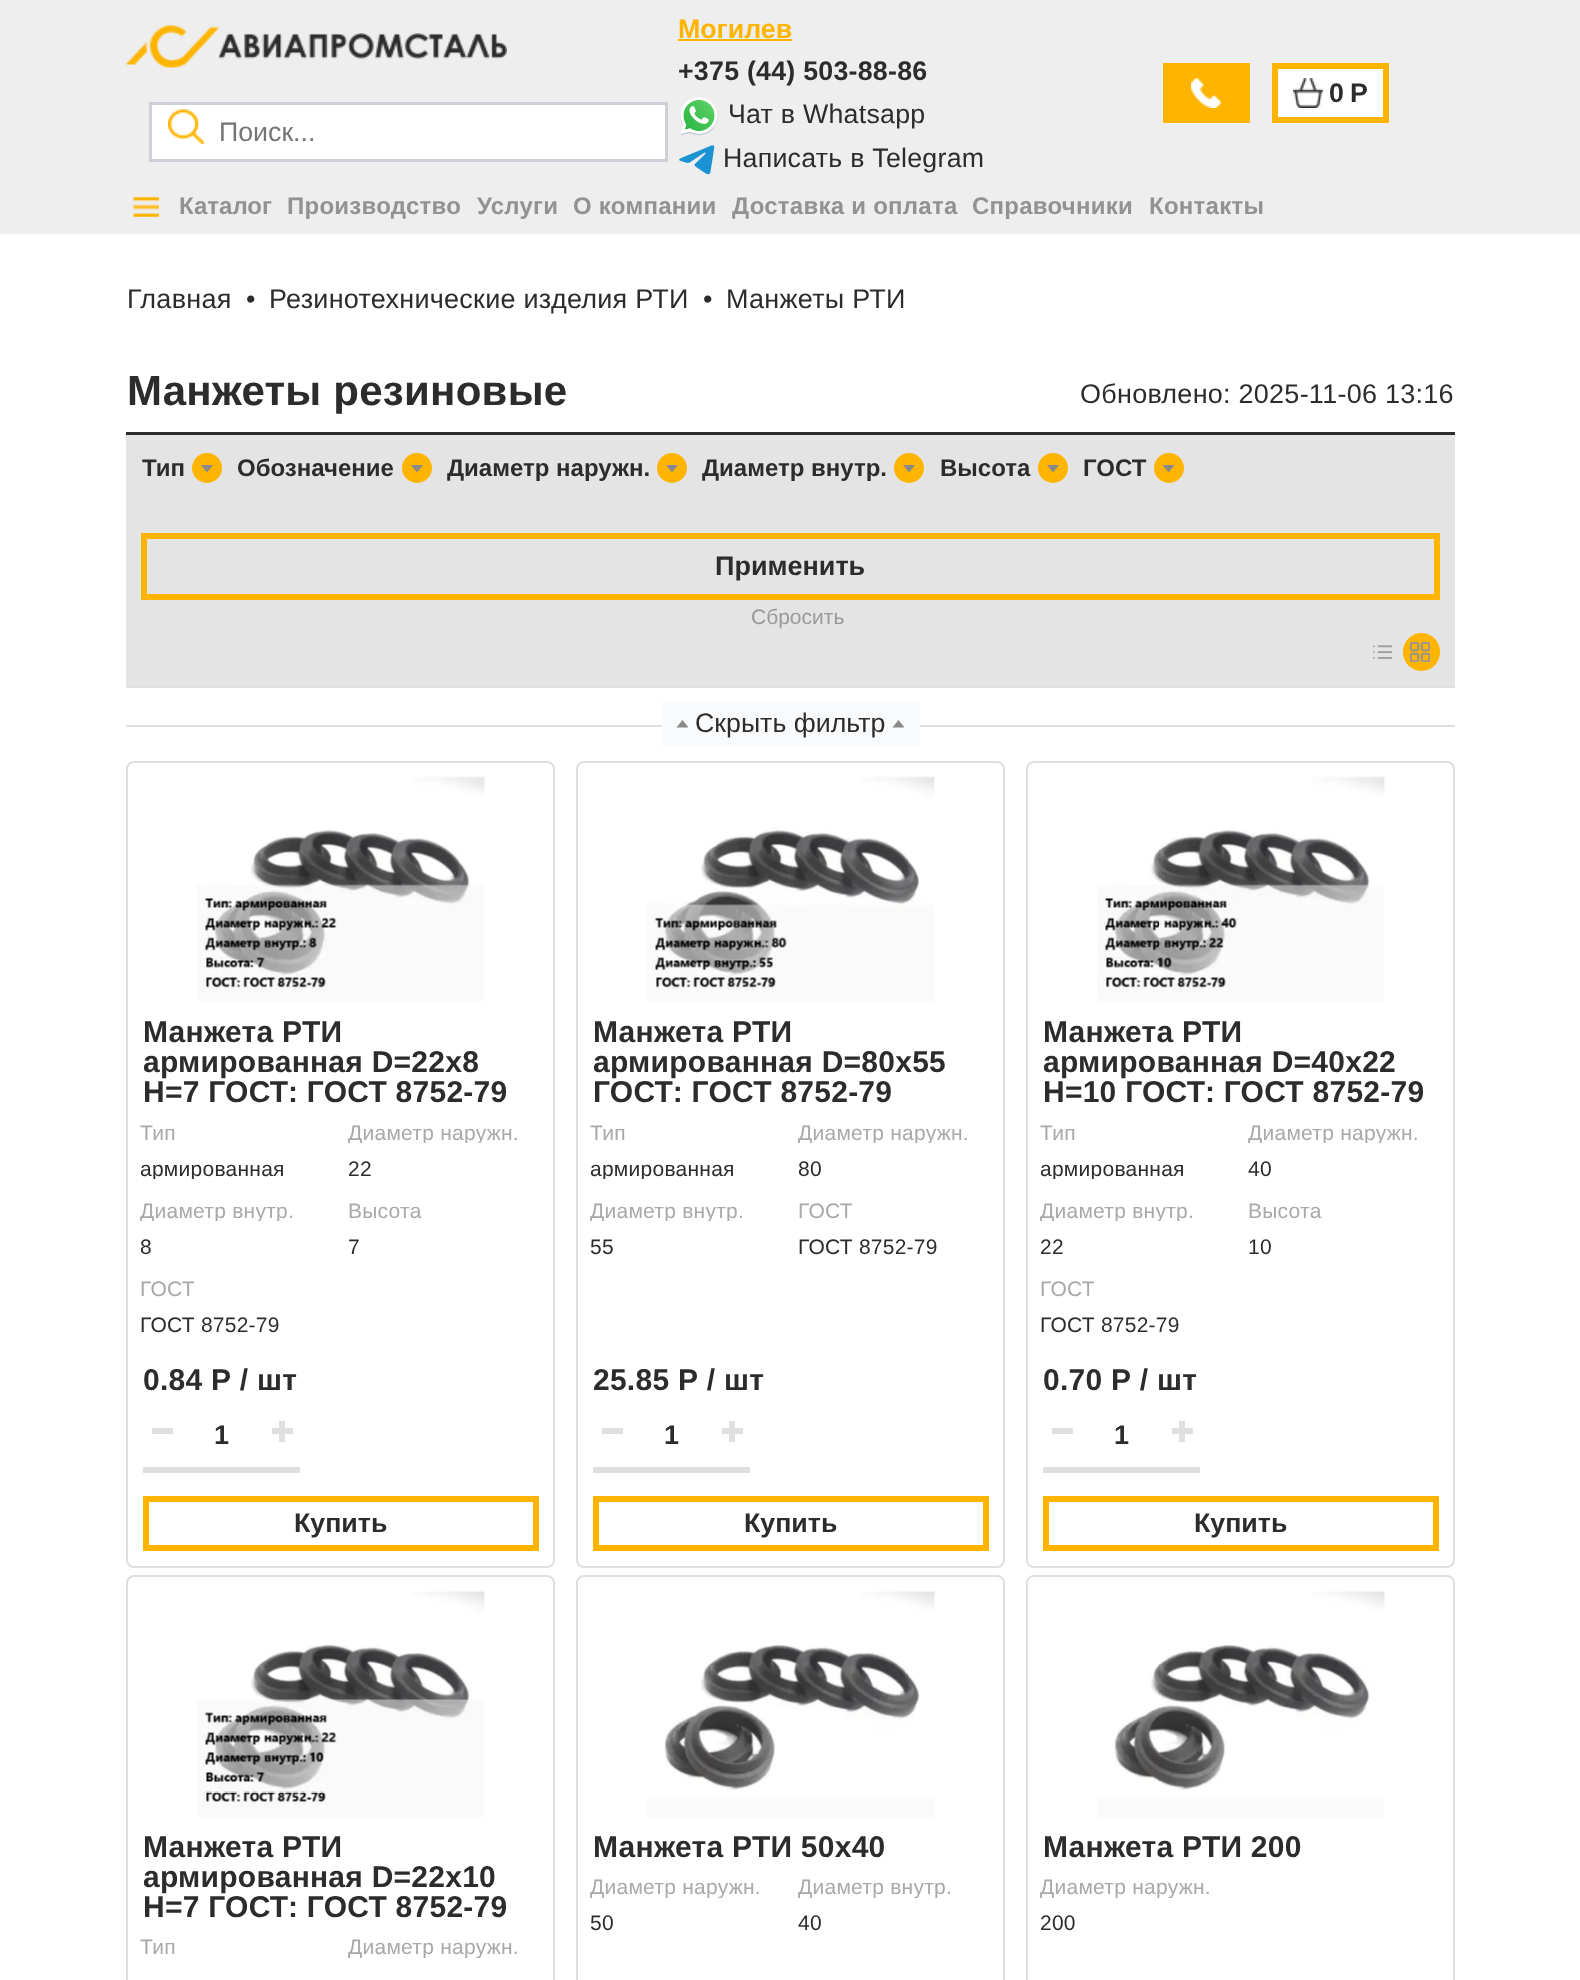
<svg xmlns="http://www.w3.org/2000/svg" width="1580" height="1980">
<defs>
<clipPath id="clip1"><rect x="140" y="1158" width="190" height="21"/></clipPath>
<clipPath id="clip2"><rect x="348" y="1122" width="191" height="21"/></clipPath>
<clipPath id="clip3"><rect x="140" y="1200" width="190" height="21"/></clipPath>
<clipPath id="clip4"><rect x="590" y="1158" width="190" height="21"/></clipPath>
<clipPath id="clip5"><rect x="798" y="1122" width="191" height="21"/></clipPath>
<clipPath id="clip6"><rect x="590" y="1200" width="190" height="21"/></clipPath>
<clipPath id="clip7"><rect x="1040" y="1158" width="190" height="21"/></clipPath>
<clipPath id="clip8"><rect x="1248" y="1122" width="191" height="21"/></clipPath>
<clipPath id="clip9"><rect x="1040" y="1200" width="190" height="21"/></clipPath>
<clipPath id="clip10"><rect x="348" y="1937" width="191" height="21"/></clipPath>
<clipPath id="clip11"><rect x="590" y="1877" width="190" height="21"/></clipPath>
<clipPath id="clip12"><rect x="798" y="1877" width="191" height="21"/></clipPath>
<clipPath id="clip13"><rect x="1040" y="1877" width="190" height="21"/></clipPath>
</defs>
<rect width="100%" height="100%" fill="#fff"/>
<rect width="1580" height="234" fill="#eee"/>
<text x="678" y="38" style="font-family:Liberation Sans;font-size:26.75px;font-weight:bold;fill:#ffb400">Могилев</text>
<rect x="678" y="39" width="114" height="2" fill="#ffb400"/>
<text x="678" y="80" style="font-family:Liberation Sans;font-size:26.75px;font-weight:bold;letter-spacing:0.25px;fill:#2c2c2c">+375 (44) 503-88-86</text>
<image x="680" y="97" width="38" height="39" href="media/1.png"/>
<text x="728" y="123" style="font-family:Liberation Sans;font-size:26.75px;letter-spacing:0.25px;fill:#2c2c2c">Чат в Whatsapp</text>
<image x="679" y="145" width="36" height="30" href="media/2.png"/>
<text x="723" y="167" style="font-family:Liberation Sans;font-size:26.75px;letter-spacing:0.25px;fill:#2c2c2c">Написать в Telegram</text>
<rect x="1163" y="63" width="87" height="60" fill="#ffb400"/>
<image x="1191" y="78" width="30" height="30" href="media/3.png"/>
<rect x="1275" y="66" width="111" height="54" fill="#fff" stroke="#ffb400" stroke-width="6"/>
<image x="1293" y="78" width="30" height="30" href="media/4.png"/>
<text x="1329" y="102" style="font-family:Liberation Sans;font-size:26.75px;font-weight:bold;letter-spacing:0.25px;fill:#2c2c2c">0</text>
<text x="1350" y="102" style="font-family:Liberation Sans;font-size:26.75px;font-weight:bold;letter-spacing:0.25px;fill:#2c2c2c">Р</text>
<image x="126" y="25" width="93" height="43" href="media/5.png"/>
<image x="219" y="33" width="288" height="26" href="media/6.png"/>
<rect x="150.5" y="103.5" width="516" height="57" fill="#fff" stroke="#cfcfd7" stroke-width="3"/>
<image x="168" y="109" width="36" height="35" href="media/7.png"/>
<text x="219" y="141" style="font-family:Liberation Sans;font-size:26.75px;fill:#757575">Поиск...</text>
<image x="133" y="197" width="26" height="20" href="media/8.png"/>
<text x="179" y="214" style="font-family:Liberation Sans;font-size:24px;font-weight:bold;fill:#929292">Каталог</text>
<text x="287" y="214" style="font-family:Liberation Sans;font-size:24px;font-weight:bold;letter-spacing:0.25px;fill:#929292">Производство</text>
<text x="477" y="214" style="font-family:Liberation Sans;font-size:24px;font-weight:bold;letter-spacing:0.25px;fill:#929292">Услуги</text>
<text x="573" y="214" style="font-family:Liberation Sans;font-size:24px;font-weight:bold;letter-spacing:0.25px;fill:#929292">О компании</text>
<text x="732" y="214" style="font-family:Liberation Sans;font-size:24px;font-weight:bold;letter-spacing:0.25px;fill:#929292">Доставка и оплата</text>
<text x="972" y="214" style="font-family:Liberation Sans;font-size:24px;font-weight:bold;letter-spacing:0.25px;fill:#929292">Справочники</text>
<text x="1149" y="214" style="font-family:Liberation Sans;font-size:24px;font-weight:bold;letter-spacing:0.25px;fill:#929292">Контакты</text>
<text x="127" y="308" style="font-family:Liberation Sans;font-size:27px;letter-spacing:0.25px;fill:#2c2c2c">Главная</text>
<text x="246" y="308" style="font-family:Liberation Sans;font-size:27px;letter-spacing:0.25px;fill:#2c2c2c">•</text>
<text x="269" y="308" style="font-family:Liberation Sans;font-size:27px;letter-spacing:0.25px;fill:#2c2c2c">Резинотехнические изделия РТИ</text>
<text x="703" y="308" style="font-family:Liberation Sans;font-size:27px;letter-spacing:0.25px;fill:#2c2c2c">•</text>
<text x="726" y="308" style="font-family:Liberation Sans;font-size:27px;letter-spacing:0.25px;fill:#2c2c2c">Манжеты РТИ</text>
<text x="127" y="405" style="font-family:Liberation Sans;font-size:42px;font-weight:bold;letter-spacing:0.25px;fill:#2c2c2c">Манжеты резиновые</text>
<text x="1080" y="403" style="font-family:Liberation Sans;font-size:27px;letter-spacing:0.25px;fill:#2c2c2c">Обновлено: 2025-11-06 13:16</text>
<rect x="126" y="435" width="1329" height="251" fill="#e4e4e4"/>
<rect x="126" y="432" width="1329" height="3" fill="#2c2c2c"/>
<rect x="126" y="686" width="1329" height="2" fill="#dfdfdf"/>
<text x="142" y="476" style="font-family:Liberation Sans;font-size:24px;font-weight:bold;fill:#2c2c2c">Тип</text>
<circle cx="207" cy="468" r="15" fill="#ffb400"/>
<path d="M201 465h12l-6 7.5z" fill="#888"/>
<text x="237" y="476" style="font-family:Liberation Sans;font-size:24px;font-weight:bold;fill:#2c2c2c">Обозначение</text>
<circle cx="417" cy="468" r="15" fill="#ffb400"/>
<path d="M411 465h12l-6 7.5z" fill="#888"/>
<text x="447" y="476" style="font-family:Liberation Sans;font-size:24px;font-weight:bold;fill:#2c2c2c">Диаметр наружн.</text>
<circle cx="672" cy="468" r="15" fill="#ffb400"/>
<path d="M666 465h12l-6 7.5z" fill="#888"/>
<text x="702" y="476" style="font-family:Liberation Sans;font-size:24px;font-weight:bold;fill:#2c2c2c">Диаметр внутр.</text>
<circle cx="909" cy="468" r="15" fill="#ffb400"/>
<path d="M903 465h12l-6 7.5z" fill="#888"/>
<text x="940" y="476" style="font-family:Liberation Sans;font-size:24px;font-weight:bold;fill:#2c2c2c">Высота</text>
<circle cx="1053" cy="468" r="15" fill="#ffb400"/>
<path d="M1047 465h12l-6 7.5z" fill="#888"/>
<text x="1083" y="476" style="font-family:Liberation Sans;font-size:24px;font-weight:bold;fill:#2c2c2c">ГОСТ</text>
<circle cx="1169" cy="468" r="15" fill="#ffb400"/>
<path d="M1162.5 465h12l-6 7.5z" fill="#888"/>
<rect x="144" y="536" width="1293" height="61" fill="none" stroke="#ffb400" stroke-width="6"/>
<text x="715" y="575" style="font-family:Liberation Sans;font-size:27px;font-weight:bold;fill:#2c2c2c">Применить</text>
<text x="751" y="624" style="font-family:Liberation Sans;font-size:21px;fill:#9a9a9a">Cбросить</text>
<image x="1373" y="645" width="20" height="14" href="media/9.png"/>
<rect x="1403" y="633" width="37" height="38" rx="18.5" fill="#ffb400"/>
<image x="1410" y="642" width="20" height="20" href="media/10.png"/>
<rect x="126" y="725" width="1329" height="2" fill="#dfdfdf"/>
<rect x="662" y="702" width="258" height="44" fill="#f8fafc"/>
<path d="M688.5 727.5h-12l6-7.5z" fill="#888"/>
<text x="695" y="732" style="font-family:Liberation Sans;font-size:26.75px;fill:#2c2c2c">Скрыть фильтр</text>
<path d="M904.5 727.5h-12l6-7.5z" fill="#888"/>
<rect x="127" y="762" width="427" height="805" rx="7" fill="none" stroke="#dfdfdf" stroke-width="2"/>
<image x="197" y="776" width="288" height="225" href="media/11.png"/>
<text x="143" y="1042" style="font-family:Liberation Sans;font-size:30px;font-weight:bold;letter-spacing:0.25px;fill:#2c2c2c">Манжета РТИ</text>
<text x="143" y="1072" style="font-family:Liberation Sans;font-size:30px;font-weight:bold;letter-spacing:0.25px;fill:#2c2c2c">армированная D=22х8</text>
<text x="143" y="1102" style="font-family:Liberation Sans;font-size:30px;font-weight:bold;letter-spacing:0.25px;fill:#2c2c2c">H=7 ГОСТ: ГОСТ 8752-79</text>
<text x="140" y="1140" style="font-family:Liberation Sans;font-size:21px;letter-spacing:0.25px;fill:#a9a9a9">Тип</text>
<g clip-path="url(#clip1)">
<text x="140" y="1176" style="font-family:Liberation Sans;font-size:21px;letter-spacing:0.25px;fill:#2c2c2c">армированная</text>
</g>
<g clip-path="url(#clip2)">
<text x="348" y="1140" style="font-family:Liberation Sans;font-size:21px;letter-spacing:0.25px;fill:#a9a9a9">Диаметр наружн.</text>
</g>
<text x="348" y="1176" style="font-family:Liberation Sans;font-size:21px;letter-spacing:0.25px;fill:#2c2c2c">22</text>
<g clip-path="url(#clip3)">
<text x="140" y="1218" style="font-family:Liberation Sans;font-size:21px;letter-spacing:0.25px;fill:#a9a9a9">Диаметр внутр.</text>
</g>
<text x="140" y="1254" style="font-family:Liberation Sans;font-size:21px;letter-spacing:0.25px;fill:#2c2c2c">8</text>
<text x="348" y="1218" style="font-family:Liberation Sans;font-size:21px;letter-spacing:0.25px;fill:#a9a9a9">Высота</text>
<text x="348" y="1254" style="font-family:Liberation Sans;font-size:21px;letter-spacing:0.25px;fill:#2c2c2c">7</text>
<text x="140" y="1296" style="font-family:Liberation Sans;font-size:21px;letter-spacing:0.25px;fill:#a9a9a9">ГОСТ</text>
<text x="140" y="1332" style="font-family:Liberation Sans;font-size:21px;letter-spacing:0.25px;fill:#2c2c2c">ГОСТ 8752-79</text>
<text x="143" y="1390" style="font-family:Liberation Sans;font-size:30px;font-weight:bold;letter-spacing:0.25px;fill:#2c2c2c">0.84 Р / шт</text>
<rect x="152" y="1428" width="21" height="6" fill="#dfdfdf"/>
<rect x="143" y="1467" width="157" height="6" fill="#dfdfdf"/>
<text x="214" y="1444" style="font-family:Liberation Sans;font-size:27px;font-weight:bold;fill:#2c2c2c">1</text>
<rect x="279" y="1421" width="6" height="21" fill="#dfdfdf"/>
<rect x="272" y="1428" width="21" height="6" fill="#dfdfdf"/>
<rect x="146" y="1499" width="390" height="49" fill="none" stroke="#ffb400" stroke-width="6"/>
<text x="294" y="1532" style="font-family:Liberation Sans;font-size:26.75px;font-weight:bold;fill:#2c2c2c">Купить</text>
<rect x="577" y="762" width="427" height="805" rx="7" fill="none" stroke="#dfdfdf" stroke-width="2"/>
<image x="647" y="776" width="288" height="225" href="media/12.png"/>
<text x="593" y="1042" style="font-family:Liberation Sans;font-size:30px;font-weight:bold;letter-spacing:0.25px;fill:#2c2c2c">Манжета РТИ</text>
<text x="593" y="1072" style="font-family:Liberation Sans;font-size:30px;font-weight:bold;letter-spacing:0.25px;fill:#2c2c2c">армированная D=80х55</text>
<text x="593" y="1102" style="font-family:Liberation Sans;font-size:30px;font-weight:bold;letter-spacing:0.25px;fill:#2c2c2c">ГОСТ: ГОСТ 8752-79</text>
<text x="590" y="1140" style="font-family:Liberation Sans;font-size:21px;letter-spacing:0.25px;fill:#a9a9a9">Тип</text>
<g clip-path="url(#clip4)">
<text x="590" y="1176" style="font-family:Liberation Sans;font-size:21px;letter-spacing:0.25px;fill:#2c2c2c">армированная</text>
</g>
<g clip-path="url(#clip5)">
<text x="798" y="1140" style="font-family:Liberation Sans;font-size:21px;letter-spacing:0.25px;fill:#a9a9a9">Диаметр наружн.</text>
</g>
<text x="798" y="1176" style="font-family:Liberation Sans;font-size:21px;letter-spacing:0.25px;fill:#2c2c2c">80</text>
<g clip-path="url(#clip6)">
<text x="590" y="1218" style="font-family:Liberation Sans;font-size:21px;letter-spacing:0.25px;fill:#a9a9a9">Диаметр внутр.</text>
</g>
<text x="590" y="1254" style="font-family:Liberation Sans;font-size:21px;letter-spacing:0.25px;fill:#2c2c2c">55</text>
<text x="798" y="1218" style="font-family:Liberation Sans;font-size:21px;letter-spacing:0.25px;fill:#a9a9a9">ГОСТ</text>
<text x="798" y="1254" style="font-family:Liberation Sans;font-size:21px;letter-spacing:0.25px;fill:#2c2c2c">ГОСТ 8752-79</text>
<text x="593" y="1390" style="font-family:Liberation Sans;font-size:30px;font-weight:bold;letter-spacing:0.25px;fill:#2c2c2c">25.85 Р / шт</text>
<rect x="602" y="1428" width="21" height="6" fill="#dfdfdf"/>
<rect x="593" y="1467" width="157" height="6" fill="#dfdfdf"/>
<text x="664" y="1444" style="font-family:Liberation Sans;font-size:27px;font-weight:bold;fill:#2c2c2c">1</text>
<rect x="729" y="1421" width="6" height="21" fill="#dfdfdf"/>
<rect x="722" y="1428" width="21" height="6" fill="#dfdfdf"/>
<rect x="596" y="1499" width="390" height="49" fill="none" stroke="#ffb400" stroke-width="6"/>
<text x="744" y="1532" style="font-family:Liberation Sans;font-size:26.75px;font-weight:bold;fill:#2c2c2c">Купить</text>
<rect x="1027" y="762" width="427" height="805" rx="7" fill="none" stroke="#dfdfdf" stroke-width="2"/>
<image x="1097" y="776" width="288" height="225" href="media/13.png"/>
<text x="1043" y="1042" style="font-family:Liberation Sans;font-size:30px;font-weight:bold;letter-spacing:0.25px;fill:#2c2c2c">Манжета РТИ</text>
<text x="1043" y="1072" style="font-family:Liberation Sans;font-size:30px;font-weight:bold;letter-spacing:0.25px;fill:#2c2c2c">армированная D=40х22</text>
<text x="1043" y="1102" style="font-family:Liberation Sans;font-size:30px;font-weight:bold;letter-spacing:0.25px;fill:#2c2c2c">H=10 ГОСТ: ГОСТ 8752-79</text>
<text x="1040" y="1140" style="font-family:Liberation Sans;font-size:21px;letter-spacing:0.25px;fill:#a9a9a9">Тип</text>
<g clip-path="url(#clip7)">
<text x="1040" y="1176" style="font-family:Liberation Sans;font-size:21px;letter-spacing:0.25px;fill:#2c2c2c">армированная</text>
</g>
<g clip-path="url(#clip8)">
<text x="1248" y="1140" style="font-family:Liberation Sans;font-size:21px;letter-spacing:0.25px;fill:#a9a9a9">Диаметр наружн.</text>
</g>
<text x="1248" y="1176" style="font-family:Liberation Sans;font-size:21px;letter-spacing:0.25px;fill:#2c2c2c">40</text>
<g clip-path="url(#clip9)">
<text x="1040" y="1218" style="font-family:Liberation Sans;font-size:21px;letter-spacing:0.25px;fill:#a9a9a9">Диаметр внутр.</text>
</g>
<text x="1040" y="1254" style="font-family:Liberation Sans;font-size:21px;letter-spacing:0.25px;fill:#2c2c2c">22</text>
<text x="1248" y="1218" style="font-family:Liberation Sans;font-size:21px;letter-spacing:0.25px;fill:#a9a9a9">Высота</text>
<text x="1248" y="1254" style="font-family:Liberation Sans;font-size:21px;letter-spacing:0.25px;fill:#2c2c2c">10</text>
<text x="1040" y="1296" style="font-family:Liberation Sans;font-size:21px;letter-spacing:0.25px;fill:#a9a9a9">ГОСТ</text>
<text x="1040" y="1332" style="font-family:Liberation Sans;font-size:21px;letter-spacing:0.25px;fill:#2c2c2c">ГОСТ 8752-79</text>
<text x="1043" y="1390" style="font-family:Liberation Sans;font-size:30px;font-weight:bold;letter-spacing:0.25px;fill:#2c2c2c">0.70 Р / шт</text>
<rect x="1052" y="1428" width="21" height="6" fill="#dfdfdf"/>
<rect x="1043" y="1467" width="157" height="6" fill="#dfdfdf"/>
<text x="1114" y="1444" style="font-family:Liberation Sans;font-size:27px;font-weight:bold;fill:#2c2c2c">1</text>
<rect x="1179" y="1421" width="6" height="21" fill="#dfdfdf"/>
<rect x="1172" y="1428" width="21" height="6" fill="#dfdfdf"/>
<rect x="1046" y="1499" width="390" height="49" fill="none" stroke="#ffb400" stroke-width="6"/>
<text x="1194" y="1532" style="font-family:Liberation Sans;font-size:26.75px;font-weight:bold;fill:#2c2c2c">Купить</text>
<rect x="127" y="1576" width="427" height="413" rx="7" fill="none" stroke="#dfdfdf" stroke-width="2"/>
<image x="197" y="1591" width="288" height="226" href="media/14.png"/>
<text x="143" y="1857" style="font-family:Liberation Sans;font-size:30px;font-weight:bold;letter-spacing:0.25px;fill:#2c2c2c">Манжета РТИ</text>
<text x="143" y="1887" style="font-family:Liberation Sans;font-size:30px;font-weight:bold;letter-spacing:0.25px;fill:#2c2c2c">армированная D=22х10</text>
<text x="143" y="1917" style="font-family:Liberation Sans;font-size:30px;font-weight:bold;letter-spacing:0.25px;fill:#2c2c2c">H=7 ГОСТ: ГОСТ 8752-79</text>
<text x="140" y="1954" style="font-family:Liberation Sans;font-size:21px;letter-spacing:0.25px;fill:#a9a9a9">Тип</text>
<g clip-path="url(#clip10)">
<text x="348" y="1954" style="font-family:Liberation Sans;font-size:21px;letter-spacing:0.25px;fill:#a9a9a9">Диаметр наружн.</text>
</g>
<rect x="577" y="1576" width="427" height="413" rx="7" fill="none" stroke="#dfdfdf" stroke-width="2"/>
<image x="647" y="1591" width="288" height="226" href="media/15.png"/>
<text x="593" y="1857" style="font-family:Liberation Sans;font-size:30px;font-weight:bold;letter-spacing:0.25px;fill:#2c2c2c">Манжета РТИ 50х40</text>
<g clip-path="url(#clip11)">
<text x="590" y="1894" style="font-family:Liberation Sans;font-size:21px;letter-spacing:0.25px;fill:#a9a9a9">Диаметр наружн.</text>
</g>
<text x="590" y="1930" style="font-family:Liberation Sans;font-size:21px;letter-spacing:0.25px;fill:#2c2c2c">50</text>
<g clip-path="url(#clip12)">
<text x="798" y="1894" style="font-family:Liberation Sans;font-size:21px;letter-spacing:0.25px;fill:#a9a9a9">Диаметр внутр.</text>
</g>
<text x="798" y="1930" style="font-family:Liberation Sans;font-size:21px;letter-spacing:0.25px;fill:#2c2c2c">40</text>
<rect x="1027" y="1576" width="427" height="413" rx="7" fill="none" stroke="#dfdfdf" stroke-width="2"/>
<image x="1097" y="1591" width="288" height="226" href="media/16.png"/>
<text x="1043" y="1857" style="font-family:Liberation Sans;font-size:30px;font-weight:bold;letter-spacing:0.25px;fill:#2c2c2c">Манжета РТИ 200</text>
<g clip-path="url(#clip13)">
<text x="1040" y="1894" style="font-family:Liberation Sans;font-size:21px;letter-spacing:0.25px;fill:#a9a9a9">Диаметр наружн.</text>
</g>
<text x="1040" y="1930" style="font-family:Liberation Sans;font-size:21px;letter-spacing:0.25px;fill:#2c2c2c">200</text>
</svg>
